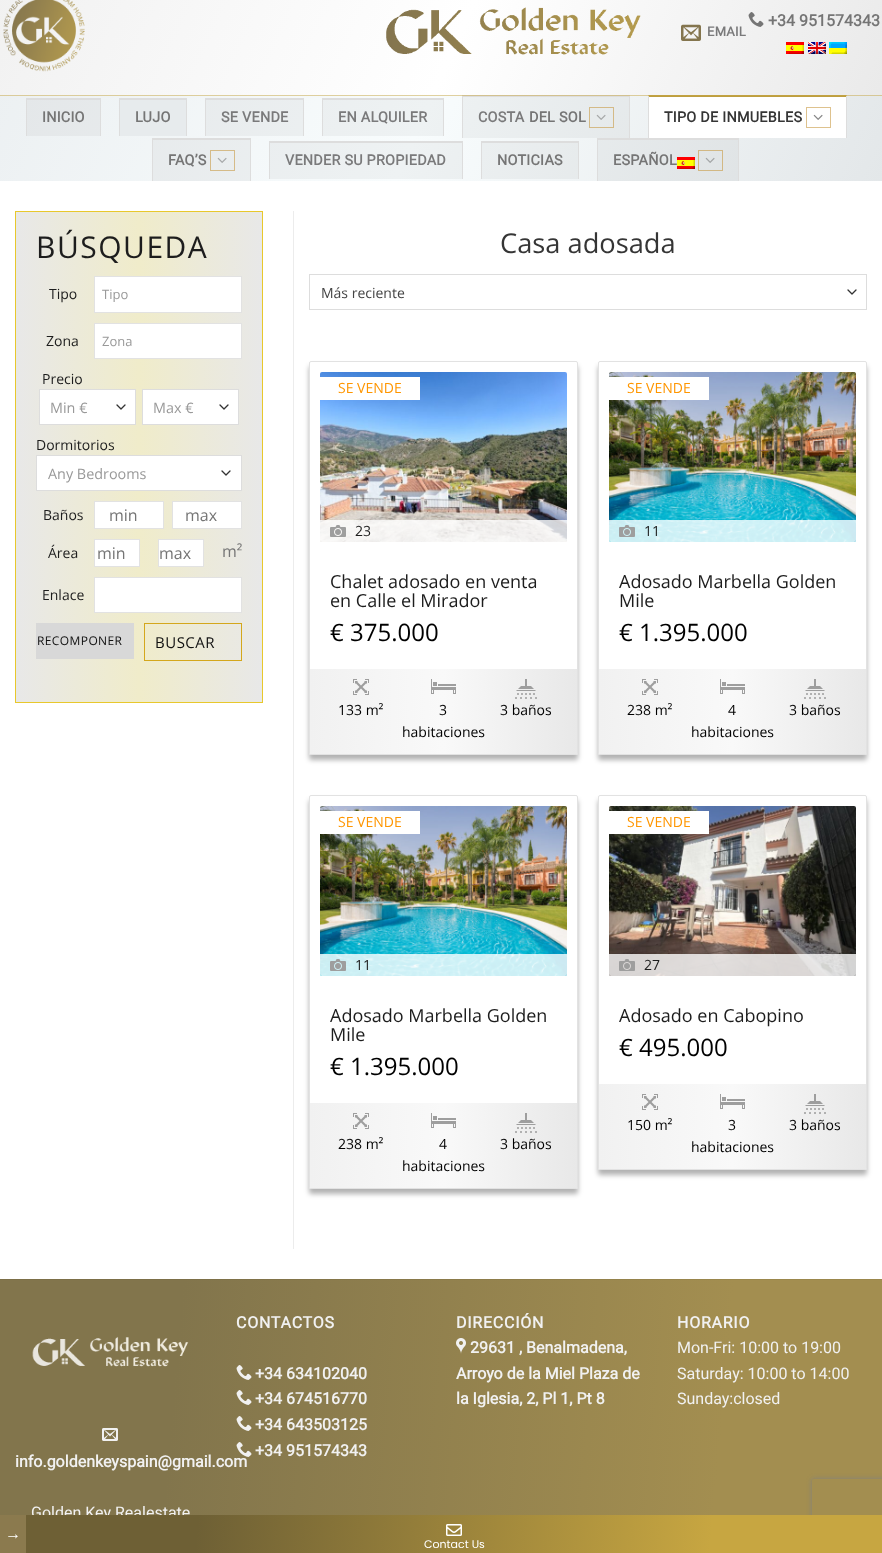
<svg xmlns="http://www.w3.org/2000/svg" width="882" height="1553">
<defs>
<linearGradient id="g1" gradientUnits="userSpaceOnUse" x1="34" y1="-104" x2="848" y2="258"><stop offset="0" stop-color="#f1f1f1"/><stop offset="0.5" stop-color="#fff"/><stop offset="1" stop-color="#e8e8e8"/></linearGradient>
<linearGradient id="g2" gradientUnits="userSpaceOnUse" x1="34" y1="-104" x2="848" y2="258"><stop offset="0" stop-color="#ebeff1"/><stop offset="0.5" stop-color="#f8fcfd"/><stop offset="1" stop-color="#e3e7e9"/></linearGradient>
<linearGradient id="g3" gradientUnits="userSpaceOnUse" x1="34" y1="-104" x2="848" y2="258"><stop offset="0" stop-color="#e2e5e7"/><stop offset="0.5" stop-color="#eef2f3"/><stop offset="1" stop-color="#dadee0"/></linearGradient>
<linearGradient id="g4" gradientUnits="userSpaceOnUse" x1="262" y1="457" x2="16" y2="457"><stop offset="0" stop-color="#e8e8e8"/><stop offset="0.5" stop-color="#f0ecca"/><stop offset="1" stop-color="#e8e8e8"/></linearGradient>
<clipPath id="clip1"><path d="M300 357h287v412h-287zm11 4h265c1 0 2 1 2 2v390c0 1-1 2-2 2h-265c-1 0-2-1-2-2v-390c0-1 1-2 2-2z" clip-rule="evenodd"/></clipPath>
<linearGradient id="g5" gradientUnits="userSpaceOnUse" x1="310" y1="712" x2="577" y2="712"><stop offset="0" stop-color="#f1f1f1"/><stop offset="0.5" stop-color="#f9f9f9"/><stop offset="1" stop-color="#e8e8e8"/></linearGradient>
<clipPath id="clip2"><path d="M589 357h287v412h-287zm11 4h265c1 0 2 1 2 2v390c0 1-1 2-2 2h-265c-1 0-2-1-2-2v-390c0-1 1-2 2-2z" clip-rule="evenodd"/></clipPath>
<linearGradient id="g6" gradientUnits="userSpaceOnUse" x1="599" y1="712" x2="866" y2="712"><stop offset="0" stop-color="#f1f1f1"/><stop offset="0.5" stop-color="#f9f9f9"/><stop offset="1" stop-color="#e8e8e8"/></linearGradient>
<clipPath id="clip3"><path d="M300 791h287v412h-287zm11 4h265c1 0 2 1 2 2v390c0 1-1 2-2 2h-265c-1 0-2-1-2-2v-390c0-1 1-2 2-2z" clip-rule="evenodd"/></clipPath>
<linearGradient id="g7" gradientUnits="userSpaceOnUse" x1="310" y1="1146" x2="577" y2="1146"><stop offset="0" stop-color="#f1f1f1"/><stop offset="0.5" stop-color="#f9f9f9"/><stop offset="1" stop-color="#e8e8e8"/></linearGradient>
<clipPath id="clip4"><path d="M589 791h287v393h-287zm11 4h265c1 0 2 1 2 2v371c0 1-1 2-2 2h-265c-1 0-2-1-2-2v-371c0-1 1-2 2-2z" clip-rule="evenodd"/></clipPath>
<linearGradient id="g8" gradientUnits="userSpaceOnUse" x1="599" y1="1127" x2="866" y2="1127"><stop offset="0" stop-color="#f1f1f1"/><stop offset="0.5" stop-color="#f9f9f9"/><stop offset="1" stop-color="#e8e8e8"/></linearGradient>
<linearGradient id="g9" gradientUnits="userSpaceOnUse" x1="-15" y1="1446" x2="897" y2="1525"><stop offset="0.2" stop-color="#82754c"/><stop offset="0.8" stop-color="#a38e50"/></linearGradient>
<linearGradient id="g10" gradientUnits="userSpaceOnUse" x1="-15" y1="1446" x2="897" y2="1525"><stop offset="0.2" stop-color="#7c6f48"/><stop offset="0.8" stop-color="#9b874c"/></linearGradient>
<clipPath id="clip5"><path d="M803 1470h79v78h-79zm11 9h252c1 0 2 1 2 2v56c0 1-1 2-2 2h-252c-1 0-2-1-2-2v-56c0-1 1-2 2-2z" clip-rule="evenodd"/></clipPath>
<linearGradient id="g11" gradientUnits="userSpaceOnUse" x1="28" y1="1497" x2="880" y2="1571"><stop offset="0.2" stop-color="#6e6035"/><stop offset="0.8" stop-color="#c7a641"/></linearGradient>
</defs>
<rect width="100%" height="100%" fill="#fff"/>
<rect width="882" height="95" fill="url(#g1)"/>
<rect y="95" width="882" height="86" fill="url(#g2)"/>
<rect x="598" y="140" width="140" height="41" fill="url(#g3)"/>
<rect x="482" y="143" width="96" height="36" fill="url(#g3)"/>
<rect x="270" y="143" width="192" height="36" fill="url(#g3)"/>
<rect x="153" y="140" width="97" height="41" fill="url(#g3)"/>
<rect x="463" y="97" width="166" height="41" fill="url(#g3)"/>
<rect x="323" y="100" width="120" height="36" fill="url(#g3)"/>
<rect x="206" y="100" width="97" height="36" fill="url(#g3)"/>
<rect x="27" y="100" width="73" height="36" fill="url(#g3)"/>
<image x="3" y="0" width="82" height="72" href="media/1.png"/>
<image x="386" y="7" width="255" height="48" href="media/2.png"/>
<image x="748" y="12" width="16" height="15" href="media/3.png"/>
<text x="768" y="26" style="font-family:Roboto;font-size:16px;font-weight:bold;fill:#757575">+34 951574343</text>
<image x="786" y="42" width="18" height="12" href="media/4.png"/>
<image x="808" y="42" width="18" height="12" href="media/5.png"/>
<image x="829" y="42" width="18" height="12" href="media/6.png"/>
<image x="681" y="24" width="20" height="17" href="media/7.png"/>
<text x="707" y="36" style="font-family:Roboto;font-size:13px;font-weight:bold;letter-spacing:0.25px;fill:#7a7a7b">EMAIL</text>
<rect x="462" y="95" width="168" height="2" fill="#ddd"/>
<rect x="629" y="95" width="1" height="43" fill="#ddd"/>
<rect x="462" y="95" width="1" height="43" fill="#ddd"/>
<rect x="648" y="95" width="199" height="43" fill="#fff"/>
<path d="M648 95h199l-1 2h-197z" fill="#bd9e40"/>
<path d="M847 95v43h-1v-41z" fill="#ddd"/>
<path d="M648 138v-43l1 2v41z" fill="#ddd"/>
<rect y="95" width="882" height="1" fill="#c7a64180"/>
<rect x="26" y="98" width="75" height="2" fill="#ddd"/>
<rect x="100" y="98" width="1" height="38" fill="#ddd"/>
<rect x="26" y="98" width="1" height="38" fill="#ddd"/>
<text x="42" y="122" style="font-family:Roboto;font-size:14.4px;font-weight:bold;letter-spacing:0.25px;fill:#757575">INICIO</text>
<rect x="120" y="100" width="66" height="36" fill="#e7ebed"/>
<rect x="119" y="98" width="68" height="2" fill="#ddd"/>
<rect x="186" y="98" width="1" height="38" fill="#ddd"/>
<rect x="119" y="98" width="1" height="38" fill="#ddd"/>
<text x="135" y="122" style="font-family:Roboto;font-size:14.4px;font-weight:bold;letter-spacing:0.25px;fill:#757575">LUJO</text>
<rect x="205" y="98" width="99" height="2" fill="#ddd"/>
<rect x="303" y="98" width="1" height="38" fill="#ddd"/>
<rect x="205" y="98" width="1" height="38" fill="#ddd"/>
<text x="221" y="122" style="font-family:Roboto;font-size:14.4px;font-weight:bold;letter-spacing:0.25px;fill:#7a7a7b">SE VENDE</text>
<rect x="322" y="98" width="122" height="2" fill="#ddd"/>
<rect x="443" y="98" width="1" height="38" fill="#ddd"/>
<rect x="322" y="98" width="1" height="38" fill="#ddd"/>
<text x="338" y="122" style="font-family:Roboto;font-size:14.4px;font-weight:bold;letter-spacing:0.25px;fill:#7a7a7b">EN ALQUILER</text>
<text x="478" y="122" style="font-family:Roboto;font-size:14.4px;font-weight:bold;letter-spacing:0.25px;fill:#7a7a7b">COSTA</text>
<text x="529" y="122" style="font-family:Roboto;font-size:14.4px;font-weight:bold;letter-spacing:0.25px;fill:#757575">DEL SOL</text>
<rect x="589.5" y="107.5" width="24" height="20" fill="none" stroke="#d4ba87"/>
<image x="596" y="114" width="10" height="6" href="media/8.png"/>
<text x="664" y="122" style="font-family:Roboto;font-size:14.4px;font-weight:bold;letter-spacing:0.25px;fill:#353535">TIPO DE INMUEBLES</text>
<rect x="806.5" y="107.5" width="24" height="20" fill="none" stroke="#dec28e"/>
<image x="813" y="114" width="10" height="6" href="media/9.png"/>
<rect x="152" y="138" width="99" height="2" fill="#ddd"/>
<rect x="250" y="138" width="1" height="43" fill="#ddd"/>
<rect x="152" y="138" width="1" height="43" fill="#ddd"/>
<text x="168" y="165" style="font-family:Roboto;font-size:14.4px;font-weight:bold;letter-spacing:0.25px;fill:#757575">FAQ’S</text>
<rect x="210.5" y="150.5" width="24" height="20" fill="none" stroke="#d5bb88"/>
<image x="217" y="157" width="10" height="6" href="media/10.png"/>
<rect x="269" y="141" width="194" height="2" fill="#ddd"/>
<rect x="462" y="141" width="1" height="38" fill="#ddd"/>
<rect x="269" y="141" width="1" height="38" fill="#ddd"/>
<text x="285" y="165" style="font-family:Roboto;font-size:14.4px;font-weight:bold;letter-spacing:0.25px;fill:#7a7a7b">VENDER SU PROPIEDAD</text>
<rect x="481" y="141" width="98" height="2" fill="#ddd"/>
<rect x="578" y="141" width="1" height="38" fill="#ddd"/>
<rect x="481" y="141" width="1" height="38" fill="#ddd"/>
<text x="497" y="165" style="font-family:Roboto;font-size:14.4px;font-weight:bold;letter-spacing:0.25px;fill:#757575">NOTICIAS</text>
<rect x="597" y="138" width="142" height="2" fill="#ddd"/>
<rect x="738" y="138" width="1" height="43" fill="#ddd"/>
<rect x="597" y="138" width="1" height="43" fill="#ddd"/>
<text x="613" y="165" style="font-family:Roboto;font-size:14.4px;font-weight:bold;letter-spacing:0.25px;fill:#757575">ESPAÑOL</text>
<image x="677" y="157" width="18" height="12" href="media/4.png"/>
<rect x="698.5" y="150.5" width="24" height="20" fill="none" stroke="#d2b884"/>
<image x="705" y="157" width="10" height="6" href="media/11.png"/>
<rect x="293" y="211" width="1" height="1038" fill="#ececec"/>
<rect x="16" y="212" width="246" height="490" fill="url(#g4)"/>
<rect x="15.5" y="211.5" width="247" height="491" fill="none" stroke="#e8c82c"/>
<text x="36" y="258" style="font-family:Open Sans;font-size:30px;letter-spacing:1.5px;fill:#1d1d1d">BÚSQUEDA</text>
<text x="49" y="299" style="font-family:Open Sans;font-size:14px;fill:#1d1d1d">Tipo</text>
<rect x="94.5" y="276.5" width="147" height="36" fill="#fff" stroke="#e2e2e2"/>
<text x="102" y="299" style="font-family:Open Sans;font-size:13px;fill:#999">Tipo</text>
<text x="46" y="346" style="font-family:Open Sans;font-size:14px;fill:#1d1d1d">Zona</text>
<rect x="94.5" y="323.5" width="147" height="35" fill="#fff" stroke="#e2e2e2"/>
<text x="102" y="346" style="font-family:Open Sans;font-size:13px;fill:#999">Zona</text>
<text x="42" y="384" style="font-family:Open Sans;font-size:14px;fill:#1d1d1d">Precio</text>
<rect x="40" y="390" width="95" height="34" fill="#fff"/>
<path d="M117 405l4 4l4-4" fill="none" stroke="#333" stroke-width="1.3" stroke-linecap="round" stroke-linejoin="round"/>
<rect x="39.5" y="389.5" width="96" height="35" fill="none" stroke="#ddd"/>
<text x="50" y="413" style="font-family:Open Sans;font-size:14.4px;fill:#999">Min €</text>
<rect x="143" y="390" width="95" height="34" fill="#fff"/>
<path d="M220 405l4 4l4-4" fill="none" stroke="#333" stroke-width="1.3" stroke-linecap="round" stroke-linejoin="round"/>
<rect x="142.5" y="389.5" width="96" height="35" fill="none" stroke="#ddd"/>
<text x="153" y="413" style="font-family:Open Sans;font-size:14.4px;fill:#999">Max €</text>
<text x="36" y="450" style="font-family:Open Sans;font-size:14px;fill:#1d1d1d">Dormitorios</text>
<rect x="37" y="456" width="204" height="34" fill="#fff"/>
<path d="M222 471l4 4l4-4" fill="none" stroke="#333" stroke-width="1.3" stroke-linecap="round" stroke-linejoin="round"/>
<rect x="36.5" y="455.5" width="205" height="35" fill="none" stroke="#ddd"/>
<text x="48" y="479" style="font-family:Open Sans;font-size:14.4px;fill:#999">Any Bedrooms</text>
<text x="43" y="520" style="font-family:Open Sans;font-size:14px;fill:#1d1d1d">Baños</text>
<rect x="94.5" y="501.5" width="69" height="27" fill="#fff" stroke="#e2e2e2"/>
<text x="109" y="521" style="font-family:Open Sans;font-size:16px;fill:#757575">min</text>
<rect x="172.5" y="501.5" width="69" height="27" fill="#fff" stroke="#e2e2e2"/>
<text x="185" y="521" style="font-family:Open Sans;font-size:16px;fill:#757575">max</text>
<text x="48" y="558" style="font-family:Open Sans;font-size:14px;fill:#1d1d1d">Área</text>
<rect x="94.5" y="539.5" width="45" height="27" fill="#fff" stroke="#e2e2e2"/>
<text x="97" y="559" style="font-family:Open Sans;font-size:16px;fill:#757575">min</text>
<rect x="158.5" y="539.5" width="45" height="27" fill="#fff" stroke="#e2e2e2"/>
<text x="159" y="559" style="font-family:Open Sans;font-size:16px;fill:#757575">max</text>
<text x="222" y="557" style="font-family:Open Sans;font-size:16px;fill:#757575">m²</text>
<text x="42" y="600" style="font-family:Open Sans;font-size:14px;fill:#1d1d1d">Enlace</text>
<rect x="94.5" y="577.5" width="147" height="35" fill="#fff" stroke="#e2e2e2"/>
<rect x="36" y="623" width="98" height="36" fill="#d8d8d8"/>
<text x="37" y="645" style="font-family:Open Sans;font-size:12px;letter-spacing:0.4px;fill:#111">RECOMPONER</text>
<rect x="144.5" y="623.5" width="97" height="37" fill="none" stroke="#d4a71c"/>
<text x="155" y="648" style="font-family:Open Sans;font-size:15px;letter-spacing:0.5px;fill:#111">BUSCAR</text>
<text x="500" y="253" style="font-family:Open Sans;font-size:27.25px;fill:#353535">Casa adosada</text>
<path d="M848 290l4 4l4-4" fill="none" stroke="#333" stroke-width="1.3" stroke-linecap="round" stroke-linejoin="round"/>
<rect x="309.5" y="274.5" width="557" height="35" fill="none" stroke="#ddd"/>
<text x="321" y="298" style="font-family:Open Sans;font-size:14px;fill:#444">Más reciente</text>
<g clip-path="url(#clip1)">
<rect x="309" y="366" width="269" height="394" rx="2" fill="#0000004d" filter="blur(2.5px)"/>
</g>
<rect x="309.5" y="361.5" width="268" height="393" rx="1.5" fill="none" stroke="#e2e2e2"/>
<image x="320" y="372" width="247" height="170" href="media/12.png"/>
<rect x="320" y="377" width="100" height="23" fill="#fff"/>
<text x="338" y="393" style="font-family:Open Sans;font-size:14px;fill:#ff9600">SE VENDE</text>
<path d="M320 520h247v20c0 1-1 2-2 2h-243c-1 0-2-1-2-2z" fill="#ffffffcc"/>
<image x="330" y="525" width="16" height="12" href="media/13.png"/>
<text x="355" y="536" style="font-family:Open Sans;font-size:14px;fill:#1d1d1d">23</text>
<text x="330" y="588" style="font-family:Open Sans;font-size:18px;fill:#1d1d1d">Chalet adosado en venta</text>
<text x="330" y="607" style="font-family:Open Sans;font-size:18px;fill:#1d1d1d">en Calle el Mirador</text>
<text x="330" y="641" style="font-family:Open Sans;font-size:24px;fill:#000">€ 375.000</text>
<rect x="310" y="669" width="267" height="85" fill="url(#g5)"/>
<image x="353" y="679" width="16" height="16" href="media/14.png"/>
<text x="338" y="715" style="font-family:Open Sans;font-size:14px;fill:#000">133 m²</text>
<image x="431" y="679" width="25" height="15" href="media/15.png"/>
<text x="439" y="715" style="font-family:Open Sans;font-size:14px;fill:#000">3</text>
<text x="402" y="737" style="font-family:Open Sans;font-size:14px;fill:#000">habitaciones</text>
<image x="515" y="679" width="22" height="20" href="media/16.png"/>
<text x="500" y="715" style="font-family:Open Sans;font-size:14px;fill:#000">3 baños</text>
<g clip-path="url(#clip2)">
<rect x="598" y="366" width="269" height="394" rx="2" fill="#0000004d" filter="blur(2.5px)"/>
</g>
<rect x="598.5" y="361.5" width="268" height="393" rx="1.5" fill="none" stroke="#e2e2e2"/>
<image x="609" y="372" width="247" height="170" href="media/17.png"/>
<rect x="609" y="377" width="100" height="23" fill="#fff"/>
<text x="627" y="393" style="font-family:Open Sans;font-size:14px;fill:#ff9600">SE VENDE</text>
<path d="M609 520h247v20c0 1-1 2-2 2h-243c-1 0-2-1-2-2z" fill="#ffffffcc"/>
<image x="619" y="525" width="16" height="12" href="media/18.png"/>
<text x="644" y="536" style="font-family:Open Sans;font-size:14px;fill:#1d1d1d">11</text>
<text x="619" y="588" style="font-family:Open Sans;font-size:18px;fill:#1d1d1d">Adosado Marbella Golden</text>
<text x="619" y="607" style="font-family:Open Sans;font-size:18px;fill:#1d1d1d">Mile</text>
<text x="619" y="641" style="font-family:Open Sans;font-size:24px;fill:#000">€ 1.395.000</text>
<rect x="599" y="669" width="267" height="85" fill="url(#g6)"/>
<image x="642" y="679" width="16" height="16" href="media/14.png"/>
<text x="627" y="715" style="font-family:Open Sans;font-size:14px;fill:#000">238 m²</text>
<image x="720" y="679" width="25" height="15" href="media/15.png"/>
<text x="728" y="715" style="font-family:Open Sans;font-size:14px;fill:#000">4</text>
<text x="691" y="737" style="font-family:Open Sans;font-size:14px;fill:#000">habitaciones</text>
<image x="804" y="679" width="22" height="20" href="media/16.png"/>
<text x="789" y="715" style="font-family:Open Sans;font-size:14px;fill:#000">3 baños</text>
<g clip-path="url(#clip3)">
<rect x="309" y="800" width="269" height="394" rx="2" fill="#0000004d" filter="blur(2.5px)"/>
</g>
<rect x="309.5" y="795.5" width="268" height="393" rx="1.5" fill="none" stroke="#e2e2e2"/>
<image x="320" y="806" width="247" height="170" href="media/19.png"/>
<rect x="320" y="811" width="100" height="23" fill="#fff"/>
<text x="338" y="827" style="font-family:Open Sans;font-size:14px;fill:#ff9600">SE VENDE</text>
<path d="M320 954h247v20c0 1-1 2-2 2h-243c-1 0-2-1-2-2z" fill="#ffffffcc"/>
<image x="330" y="959" width="16" height="12" href="media/18.png"/>
<text x="355" y="970" style="font-family:Open Sans;font-size:14px;fill:#1d1d1d">11</text>
<text x="330" y="1022" style="font-family:Open Sans;font-size:18px;fill:#1d1d1d">Adosado Marbella Golden</text>
<text x="330" y="1041" style="font-family:Open Sans;font-size:18px;fill:#1d1d1d">Mile</text>
<text x="330" y="1075" style="font-family:Open Sans;font-size:24px;fill:#000">€ 1.395.000</text>
<rect x="310" y="1103" width="267" height="85" fill="url(#g7)"/>
<image x="353" y="1113" width="16" height="16" href="media/14.png"/>
<text x="338" y="1149" style="font-family:Open Sans;font-size:14px;fill:#000">238 m²</text>
<image x="431" y="1113" width="25" height="15" href="media/15.png"/>
<text x="439" y="1149" style="font-family:Open Sans;font-size:14px;fill:#000">4</text>
<text x="402" y="1171" style="font-family:Open Sans;font-size:14px;fill:#000">habitaciones</text>
<image x="515" y="1113" width="22" height="20" href="media/16.png"/>
<text x="500" y="1149" style="font-family:Open Sans;font-size:14px;fill:#000">3 baños</text>
<g clip-path="url(#clip4)">
<rect x="598" y="800" width="269" height="375" rx="2" fill="#0000004d" filter="blur(2.5px)"/>
</g>
<rect x="598.5" y="795.5" width="268" height="374" rx="1.5" fill="none" stroke="#e2e2e2"/>
<image x="609" y="806" width="247" height="170" href="media/20.png"/>
<rect x="609" y="811" width="100" height="23" fill="#fff"/>
<text x="627" y="827" style="font-family:Open Sans;font-size:14px;fill:#ff9600">SE VENDE</text>
<path d="M609 954h247v20c0 1-1 2-2 2h-243c-1 0-2-1-2-2z" fill="#ffffffcc"/>
<image x="619" y="959" width="16" height="12" href="media/21.png"/>
<text x="644" y="970" style="font-family:Open Sans;font-size:14px;fill:#1d1d1d">27</text>
<text x="619" y="1022" style="font-family:Open Sans;font-size:18px;fill:#1d1d1d">Adosado en Cabopino</text>
<text x="619" y="1056" style="font-family:Open Sans;font-size:24px;fill:#000">€ 495.000</text>
<rect x="599" y="1084" width="267" height="85" fill="url(#g8)"/>
<image x="642" y="1094" width="16" height="16" href="media/14.png"/>
<text x="627" y="1130" style="font-family:Open Sans;font-size:14px;fill:#000">150 m²</text>
<image x="720" y="1094" width="25" height="15" href="media/15.png"/>
<text x="728" y="1130" style="font-family:Open Sans;font-size:14px;fill:#000">3</text>
<text x="691" y="1152" style="font-family:Open Sans;font-size:14px;fill:#000">habitaciones</text>
<image x="804" y="1094" width="22" height="20" href="media/16.png"/>
<text x="789" y="1130" style="font-family:Open Sans;font-size:14px;fill:#000">3 baños</text>
<rect y="1280" width="882" height="235" fill="url(#g9)"/>
<rect y="1279" width="882" height="1" fill="url(#g10)"/>
<text x="236" y="1328" style="font-family:Roboto;font-size:16px;font-weight:bold;letter-spacing:0.75px;fill:#f1f1f1">CONTACTOS</text>
<image x="236" y="1365" width="16" height="15" href="media/22.png"/>
<text x="255" y="1379" style="font-family:Roboto;font-size:16px;font-weight:bold;fill:#f1f1f1">+34 634102040</text>
<image x="236" y="1390" width="16" height="15" href="media/23.png"/>
<text x="255" y="1404" style="font-family:Roboto;font-size:16px;font-weight:bold;fill:#f1f1f1">+34 674516770</text>
<image x="236" y="1416" width="16" height="15" href="media/24.png"/>
<text x="255" y="1430" style="font-family:Roboto;font-size:16px;font-weight:bold;fill:#f1f1f1">+34 643503125</text>
<text x="15" y="1467" style="font-family:Roboto;font-size:16px;font-weight:bold;fill:#f1f1f1">info.goldenkeyspain@gmail.com</text>
<image x="236" y="1442" width="16" height="15" href="media/25.png"/>
<text x="255" y="1456" style="font-family:Roboto;font-size:16px;font-weight:bold;fill:#f1f1f1">+34 951574343</text>
<text x="456" y="1328" style="font-family:Roboto;font-size:16px;font-weight:bold;letter-spacing:0.75px;fill:#f1f1f1">DIRECCIÓN</text>
<image x="456" y="1338" width="10" height="16" href="media/26.png"/>
<text x="470" y="1353" style="font-family:Roboto;font-size:16px;font-weight:bold;fill:#f1f1f1">29631 , Benalmadena,</text>
<text x="456" y="1379" style="font-family:Roboto;font-size:16px;font-weight:bold;fill:#f1f1f1">Arroyo de la Miel Plaza de</text>
<text x="456" y="1404" style="font-family:Roboto;font-size:16px;font-weight:bold;fill:#f1f1f1">la Iglesia, 2, Pl 1, Pt 8</text>
<text x="677" y="1328" style="font-family:Roboto;font-size:16px;font-weight:bold;letter-spacing:0.75px;fill:#f1f1f1">HORARIO</text>
<text x="677" y="1353" style="font-family:Roboto;font-size:16px;fill:#f1f1f1">Mon-Fri: 10:00 to 19:00</text>
<text x="677" y="1379" style="font-family:Roboto;font-size:16px;fill:#f1f1f1">Saturday: 10:00 to 14:00</text>
<text x="677" y="1404" style="font-family:Roboto;font-size:16px;fill:#f1f1f1">Sunday:closed</text>
<image x="32" y="1336" width="157" height="31" href="media/27.png"/>
<image x="102" y="1428" width="16" height="13" href="media/28.png"/>
<text x="31" y="1518" style="font-family:Roboto;font-size:16px;fill:#f1f1f1">Golden Key Realestate</text>
<rect y="1515" width="26" height="38" fill="#8b7a4e"/>
<text x="5" y="1539" style="font-family:Liberation Serif;font-size:16px;fill:#fff">→</text>
<g clip-path="url(#clip5)">
<rect x="812" y="1479" width="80" height="60" rx="2" fill="#808080" filter="blur(2.5px)"/>
</g>
<rect x="26" y="1515" width="856" height="38" fill="url(#g11)"/>
<image x="446" y="1524" width="16" height="12" href="media/29.png"/>
<text x="424" y="1548" style="font-family:Poppins;font-size:11px;fill:#fff">Contact Us</text>
</svg>
